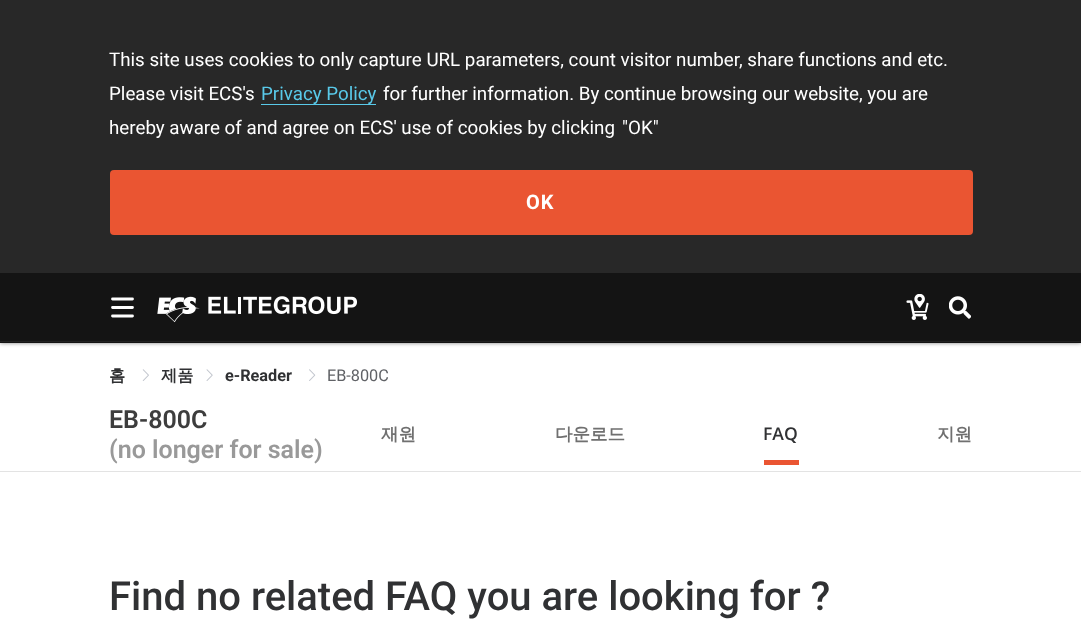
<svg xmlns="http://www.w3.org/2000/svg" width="1081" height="625">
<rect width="100%" height="100%" fill="#fff"/>
<rect y="273" width="1081" height="70" fill="#00000080" filter="blur(2px)"/>
<rect width="1081" height="273" fill="#282828"/>
<text x="109" y="66" style="font-family:Roboto;font-size:18.75px;fill:#fff">This site uses cookies to only capture URL parameters, count visitor number, share functions and etc.</text>
<text x="109" y="100" style="font-family:Roboto;font-size:18.75px;fill:#fff">Please visit ECS's</text>
<text x="261" y="100" style="font-family:Roboto;font-size:18.75px;fill:#59c9e9">Privacy Policy</text>
<rect x="261" y="104" width="115" height="1" fill="#59c9e9"/>
<text x="383" y="100" style="font-family:Roboto;font-size:18.75px;fill:#fff">for further information. By continue browsing our website, you are</text>
<text x="109" y="134" style="font-family:Roboto;font-size:18.75px;fill:#fff">hereby aware of and agree on ECS' use of cookies by clicking</text>
<text x="622" y="134" style="font-family:Roboto;font-size:18.75px;fill:#fff">"OK"</text>
<rect x="110" y="170" width="863" height="65" rx="4" fill="#ea5532"/>
<text x="526" y="209" style="font-family:Roboto;font-size:20px;font-weight:bold;letter-spacing:1px;fill:#fff">OK</text>
<rect y="273" width="1081" height="70" fill="#141414"/>
<rect y="341" width="1081" height="1" fill="#212121"/>
<path d="M112.5 299h20m-20 8.5h20m0 8.5h-20" fill="none" stroke="#fff" stroke-width="2.8" stroke-linecap="round"/>
<image x="157" y="296" width="200" height="27" href="media/1.png"/>
<image x="906" y="294" width="23" height="26" href="media/2.png"/>
<image x="949" y="296" width="22" height="23" href="media/3.png"/>
<text x="109" y="381" style="font-family:WenQuanYi Zen Hei;font-size:16.25px;font-weight:bold;fill:#303133">홈</text>
<image x="142" y="369" width="7" height="12" href="media/4.png"/>
<text x="161" y="381" style="font-family:WenQuanYi Zen Hei;font-size:16.25px;font-weight:bold;fill:#303133">제품</text>
<image x="206" y="369" width="7" height="12" href="media/5.png"/>
<text x="225" y="381" style="font-family:Roboto;font-size:16.25px;font-weight:bold;fill:#303133">e-Reader</text>
<image x="309" y="369" width="7" height="12" href="media/6.png"/>
<text x="327" y="381" style="font-family:Roboto;font-size:16.25px;fill:#606266">EB-800C</text>
<rect y="471" width="1081" height="1" fill="#e3e3e3"/>
<text x="109" y="428" style="font-family:Roboto;font-size:25px;font-weight:600;fill:#3d3d3d">EB-800C</text>
<text x="109" y="458" style="font-family:Roboto;font-size:25px;font-weight:600;fill:#999">(no longer for sale)</text>
<text x="381" y="440" style="font-family:WenQuanYi Zen Hei;font-size:17.5px;font-weight:bold;fill:#707070">재원</text>
<text x="555" y="440" style="font-family:WenQuanYi Zen Hei;font-size:17.5px;font-weight:bold;fill:#707070">다운로드</text>
<text x="763" y="440" style="font-family:Open Sans;font-size:17.5px;font-weight:600;fill:#303133">FAQ</text>
<rect x="764" y="460" width="35" height="5" fill="#ea5532"/>
<text x="937" y="440" style="font-family:WenQuanYi Zen Hei;font-size:17.5px;font-weight:bold;fill:#707070">지원</text>
<text x="109" y="610" style="font-family:Roboto;font-size:40px;font-weight:500;fill:#303133">Find no related FAQ you are looking for ?</text>
</svg>
